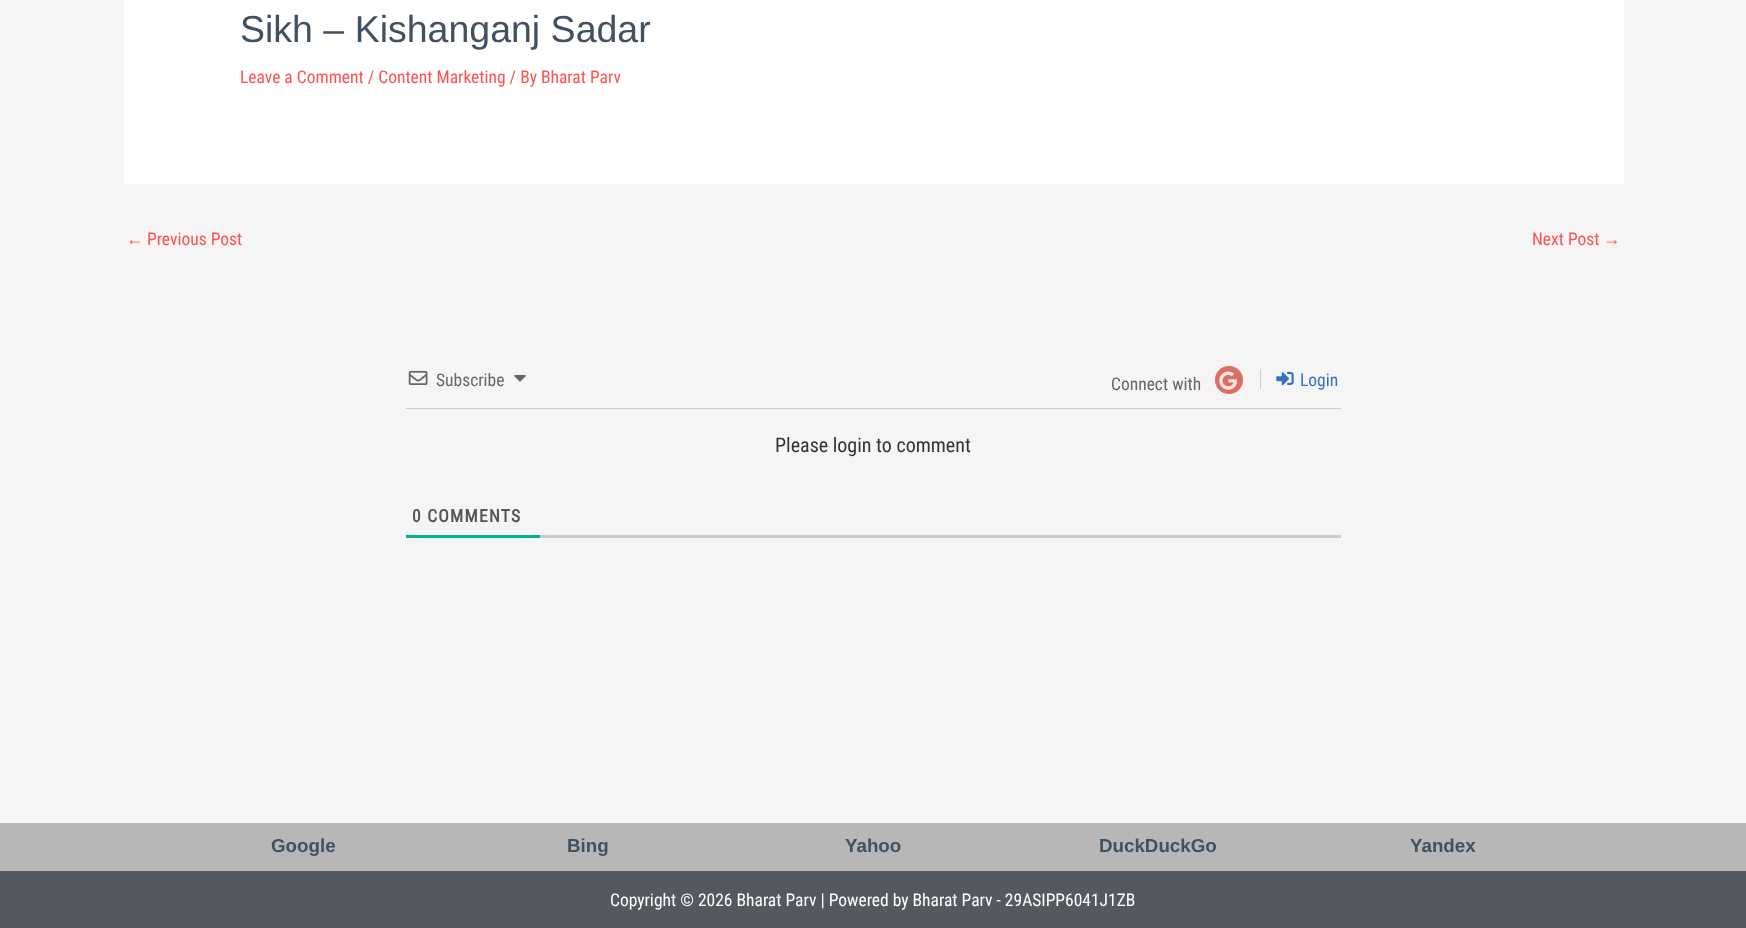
<svg xmlns="http://www.w3.org/2000/svg" width="1746" height="928">
<rect width="100%" height="100%" fill="#f5f5f5"/>
<rect x="124" width="1500" height="184" fill="#fff"/>
<text x="240" y="42" style="font-family:Liberation Sans;font-size:37.5px;fill:#415161">Sikh – Kishanganj Sadar</text>
<text x="240" y="83" style="font-family:Roboto Condensed;font-size:17.5px;fill:#ff5151">Leave a Comment / Content Marketing / By Bharat Parv</text>
<text x="126" y="245" style="font-family:Liberation Sans;font-size:17.5px;fill:#ff5151">←</text>
<text x="147" y="245" style="font-family:Roboto Condensed;font-size:17.5px;fill:#ff5151">Previous Post</text>
<text x="1532" y="245" style="font-family:Roboto Condensed;font-size:17.5px;fill:#ff5151">Next Post</text>
<text x="1603" y="245" style="font-family:Liberation Sans;font-size:17.5px;fill:#ff5151">→</text>
<rect x="406" y="408" width="935" height="1" fill="#ccc"/>
<image x="408" y="370" width="20" height="15" href="media/1.png"/>
<text x="436" y="386" style="font-family:Roboto Condensed;font-size:17.5px;fill:#666">Subscribe</text>
<image x="514" y="375" width="12" height="7" href="media/2.png"/>
<text x="1111" y="390" style="font-family:Roboto Condensed;font-size:17.5px;fill:#666">Connect with</text>
<circle cx="1229" cy="380" r="14" fill="#db6e63"/>
<image x="1219" y="371" width="18" height="19" href="media/3.png"/>
<rect x="1260" y="369" width="1" height="20" fill="#ccc"/>
<image x="1276" y="371" width="18" height="15" href="media/4.png"/>
<text x="1300" y="386" style="font-family:Roboto Condensed;font-size:17.5px;fill:#3272bf">Login</text>
<text x="775" y="452" style="font-family:Roboto Condensed;font-size:20px;fill:#333">Please login to comment</text>
<rect x="540" y="535" width="801" height="3" fill="#ccc"/>
<rect x="406" y="535" width="134" height="3" fill="#00b38f"/>
<text x="412" y="522" style="font-family:Roboto Condensed;font-size:17.5px;font-weight:bold;letter-spacing:1.25px;fill:#555">0 COMMENTS</text>
<rect y="823" width="1746" height="48" fill="#b7b7b7"/>
<text x="271" y="852" style="font-family:Liberation Sans;font-size:18.75px;font-weight:bold;fill:#415161">Google</text>
<text x="567" y="852" style="font-family:Liberation Sans;font-size:18.75px;font-weight:bold;fill:#415161">Bing</text>
<text x="845" y="852" style="font-family:Liberation Sans;font-size:18.75px;font-weight:bold;fill:#415161">Yahoo</text>
<text x="1099" y="852" style="font-family:Liberation Sans;font-size:18.75px;font-weight:bold;fill:#415161">DuckDuckGo</text>
<text x="1410" y="852" style="font-family:Liberation Sans;font-size:18.75px;font-weight:bold;fill:#415161">Yandex</text>
<rect y="871" width="1746" height="57" fill="#54595f"/>
<text x="610" y="906" style="font-family:Roboto Condensed;font-size:17.5px;fill:#fff">Copyright © 2026 Bharat Parv | Powered by Bharat Parv - 29ASIPP6041J1ZB</text>
</svg>
